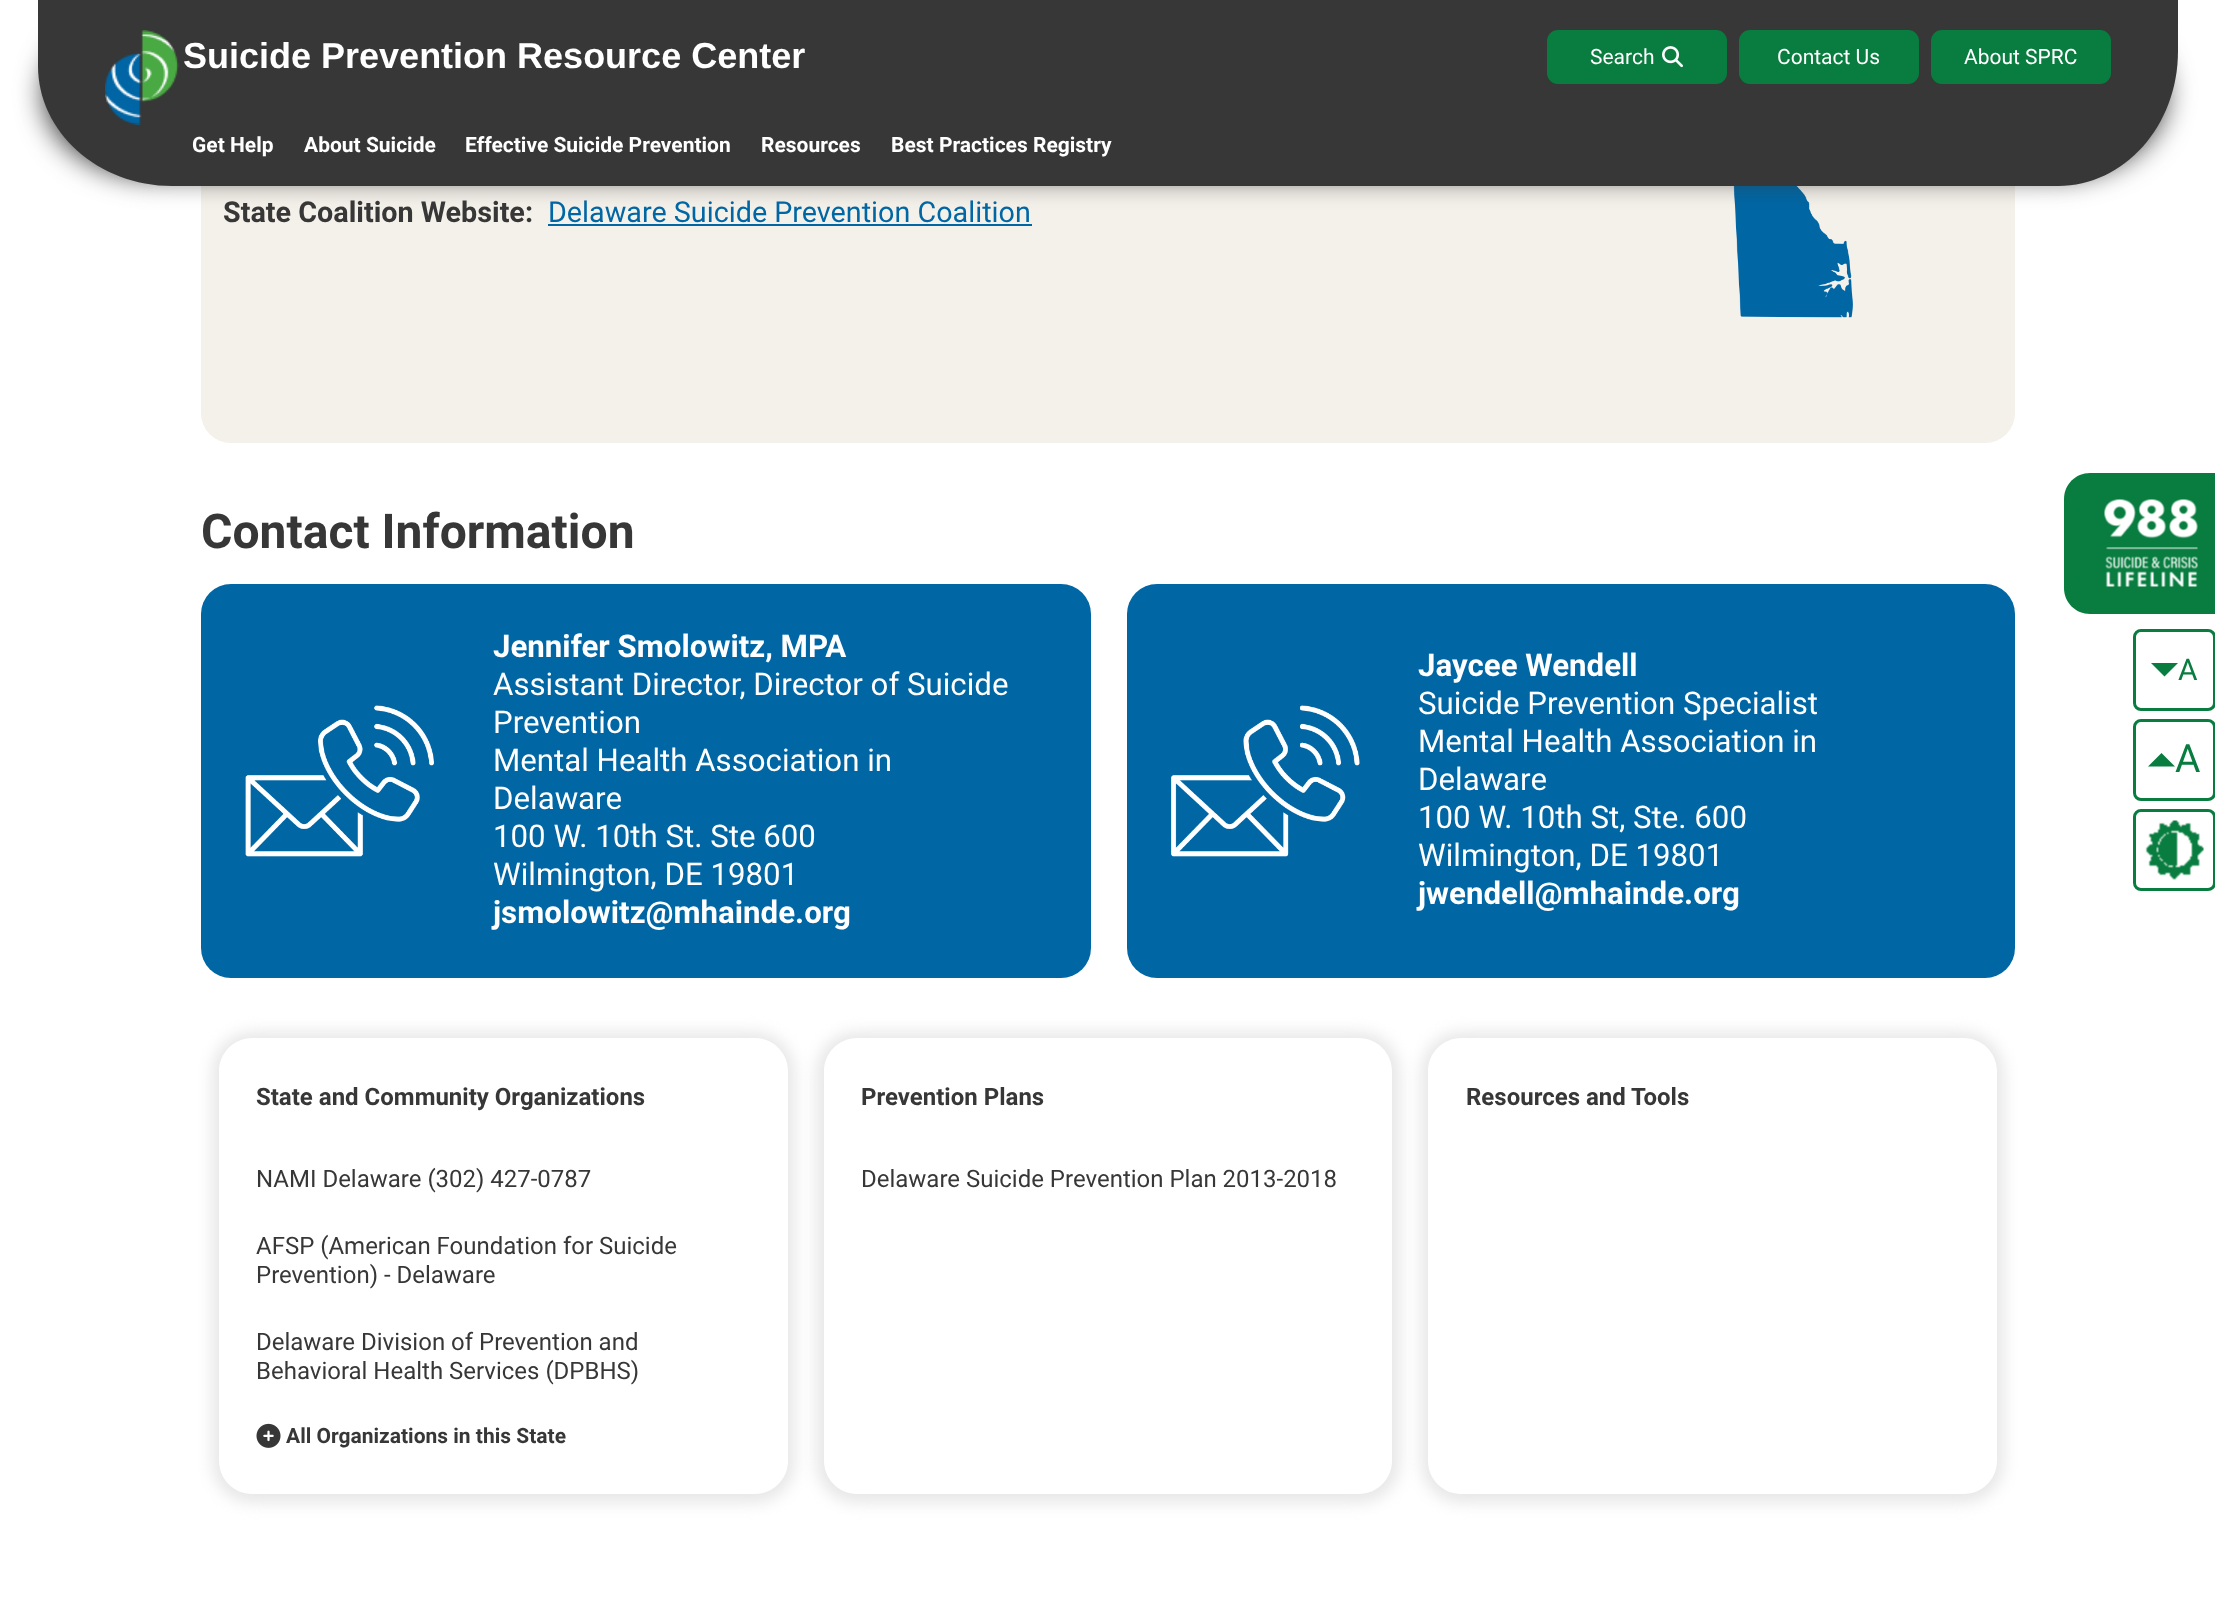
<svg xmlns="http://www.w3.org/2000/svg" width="2215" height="1612">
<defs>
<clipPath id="clip1"><path d="M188 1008h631v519h-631zm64 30h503c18 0 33 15 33 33v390c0 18-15 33-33 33h-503c-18 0-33-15-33-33v-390c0-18 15-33 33-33z" clip-rule="evenodd"/></clipPath>
<clipPath id="clip2"><path d="M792 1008h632v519h-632zm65 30h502c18 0 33 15 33 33v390c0 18-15 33-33 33h-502c-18 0-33-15-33-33v-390c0-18 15-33 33-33z" clip-rule="evenodd"/></clipPath>
<clipPath id="clip3"><path d="M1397 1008h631v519h-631zm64 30h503c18 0 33 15 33 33v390c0 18-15 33-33 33h-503c-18 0-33-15-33-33v-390c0-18 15-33 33-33z" clip-rule="evenodd"/></clipPath>
</defs>
<rect width="100%" height="100%" fill="#fff"/>
<rect x="201" y="-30" width="1814" height="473" rx="30" fill="#f4f0ea"/>
<image x="1733" y="186" width="120" height="132" href="media/3.png"/>
<rect x="44" y="9" width="2122" height="168" rx="111" fill="#373737" filter="blur(14px)"/>
<path d="M38 0h2140v51c0 75-54 135-120 135h-1886c-74 0-134-54-134-120z" fill="#373737"/>
<image x="105" y="30" width="74" height="95" href="media/1.png"/>
<text x="183" y="68" style="font-family:Liberation Sans;font-size:36px;font-weight:bold;fill:#fff">Suicide Prevention Resource Center</text>
<rect x="1547" y="30" width="180" height="54" rx="11" fill="#087d3f"/>
<text x="1590" y="64" style="font-family:Roboto;font-size:21px;fill:#fff">Search</text>
<image x="1662" y="46" width="21" height="22" href="media/2.png"/>
<rect x="1739" y="30" width="180" height="54" rx="11" fill="#087d3f"/>
<text x="1777" y="64" style="font-family:Roboto;font-size:21px;fill:#fff">Contact Us</text>
<rect x="1931" y="30" width="180" height="54" rx="11" fill="#087d3f"/>
<text x="1964" y="64" style="font-family:Roboto;font-size:21px;fill:#fff">About SPRC</text>
<text x="192" y="152" style="font-family:Roboto;font-size:21px;font-weight:bold;fill:#fff">Get Help</text>
<text x="304" y="152" style="font-family:Roboto;font-size:21px;font-weight:bold;fill:#fff">About Suicide</text>
<text x="465" y="152" style="font-family:Roboto;font-size:21px;font-weight:bold;fill:#fff">Effective Suicide Prevention</text>
<text x="761" y="152" style="font-family:Roboto;font-size:21px;font-weight:bold;fill:#fff">Resources</text>
<text x="891" y="152" style="font-family:Roboto;font-size:21px;font-weight:bold;fill:#fff">Best Practices Registry</text>
<text x="223" y="222" style="font-family:Roboto;font-size:28.75px;font-weight:bold;fill:#373737">State Coalition Website:</text>
<text x="548" y="222" style="font-family:Roboto;font-size:28.75px;fill:#0066a4">Delaware Suicide Prevention Coalition</text>
<rect x="548" y="224" width="484" height="2" fill="#0066a4"/>
<text x="201" y="548" style="font-family:Roboto;font-size:48px;font-weight:bold;fill:#373737">Contact Information</text>
<rect x="201" y="584" width="890" height="394" rx="30" fill="#0066a4"/>
<image x="245" y="705" width="189" height="152" href="media/4.png"/>
<text x="493" y="657" style="font-family:Roboto;font-size:31.25px;font-weight:bold;fill:#fff">Jennifer Smolowitz, MPA</text>
<text x="493" y="695" style="font-family:Roboto;font-size:31.25px;fill:#fff">Assistant Director, Director of Suicide</text>
<text x="493" y="733" style="font-family:Roboto;font-size:31.25px;fill:#fff">Prevention</text>
<text x="493" y="771" style="font-family:Roboto;font-size:31.25px;fill:#fff">Mental Health Association in</text>
<text x="493" y="809" style="font-family:Roboto;font-size:31.25px;fill:#fff">Delaware</text>
<text x="493" y="847" style="font-family:Roboto;font-size:31.25px;fill:#fff">100 W. 10th St. Ste 600</text>
<text x="493" y="885" style="font-family:Roboto;font-size:31.25px;fill:#fff">Wilmington, DE 19801</text>
<text x="493" y="923" style="font-family:Roboto;font-size:31.25px;font-weight:bold;fill:#fff">jsmolowitz@mhainde.org</text>
<rect x="1127" y="584" width="888" height="394" rx="30" fill="#0066a4"/>
<image x="1171" y="705" width="189" height="152" href="media/5.png"/>
<text x="1418" y="676" style="font-family:Roboto;font-size:31.25px;font-weight:bold;fill:#fff">Jaycee Wendell</text>
<text x="1418" y="714" style="font-family:Roboto;font-size:31.25px;fill:#fff">Suicide Prevention Specialist</text>
<text x="1418" y="752" style="font-family:Roboto;font-size:31.25px;fill:#fff">Mental Health Association in</text>
<text x="1418" y="790" style="font-family:Roboto;font-size:31.25px;fill:#fff">Delaware</text>
<text x="1418" y="828" style="font-family:Roboto;font-size:31.25px;fill:#fff">100 W. 10th St, Ste. 600</text>
<text x="1418" y="866" style="font-family:Roboto;font-size:31.25px;fill:#fff">Wilmington, DE 19801</text>
<text x="1418" y="904" style="font-family:Roboto;font-size:31.25px;font-weight:bold;fill:#fff">jwendell@mhainde.org</text>
<g clip-path="url(#clip1)">
<rect x="212" y="1032" width="583" height="471" rx="41" fill="#e7e7e7" filter="blur(7.5px)"/>
</g>
<text x="256" y="1105" style="font-family:Roboto;font-size:24px;font-weight:bold;fill:#373737">State and Community Organizations</text>
<text x="256" y="1187" style="font-family:Roboto;font-size:24px;fill:#373737">NAMI Delaware (302) 427-0787</text>
<text x="256" y="1254" style="font-family:Roboto;font-size:24px;fill:#373737">AFSP (American Foundation for Suicide</text>
<text x="256" y="1283" style="font-family:Roboto;font-size:24px;fill:#373737">Prevention) - Delaware</text>
<text x="256" y="1350" style="font-family:Roboto;font-size:24px;fill:#373737">Delaware Division of Prevention and</text>
<text x="256" y="1379" style="font-family:Roboto;font-size:24px;fill:#373737">Behavioral Health Services (DPBHS)</text>
<image x="256" y="1423" width="25" height="25" href="media/6.png"/>
<text x="286" y="1443" style="font-family:Roboto;font-size:21px;font-weight:bold;fill:#373737">All Organizations in this State</text>
<g clip-path="url(#clip2)">
<rect x="816" y="1032" width="584" height="471" rx="41" fill="#e7e7e7" filter="blur(7.5px)"/>
</g>
<text x="861" y="1105" style="font-family:Roboto;font-size:24px;font-weight:bold;fill:#373737">Prevention Plans</text>
<text x="861" y="1187" style="font-family:Roboto;font-size:24px;fill:#373737">Delaware Suicide Prevention Plan 2013-2018</text>
<g clip-path="url(#clip3)">
<rect x="1421" y="1032" width="583" height="471" rx="41" fill="#e7e7e7" filter="blur(7.5px)"/>
</g>
<text x="1466" y="1105" style="font-family:Roboto;font-size:24px;font-weight:bold;fill:#373737">Resources and Tools</text>
<path d="M2090 473h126v141h-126c-14.5 0-26-11.5-26-26v-89c0-14.5 11.5-26 26-26z" fill="#087d3f"/>
<image x="2104" y="499" width="94" height="88" href="media/7.png"/>
<rect x="2134.5" y="630.5" width="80" height="79" rx="6.5" fill="none" stroke="#087d3f" stroke-width="3"/>
<path d="M2151 663h27l-13.5 13.5z" fill="#087d3f"/>
<text x="2178" y="680" style="font-family:Roboto;font-size:30px;fill:#087d3f">A</text>
<rect x="2134.5" y="720.5" width="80" height="79" rx="6.5" fill="none" stroke="#087d3f" stroke-width="3"/>
<path d="M2175 766.5h-27l13.5-13.5z" fill="#087d3f"/>
<text x="2175" y="772" style="font-family:Roboto;font-size:39px;fill:#087d3f">A</text>
<rect x="2134.5" y="810.5" width="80" height="79" rx="6.5" fill="none" stroke="#087d3f" stroke-width="3"/>
<image x="2145" y="820" width="59" height="60" href="media/8.png"/>
</svg>
